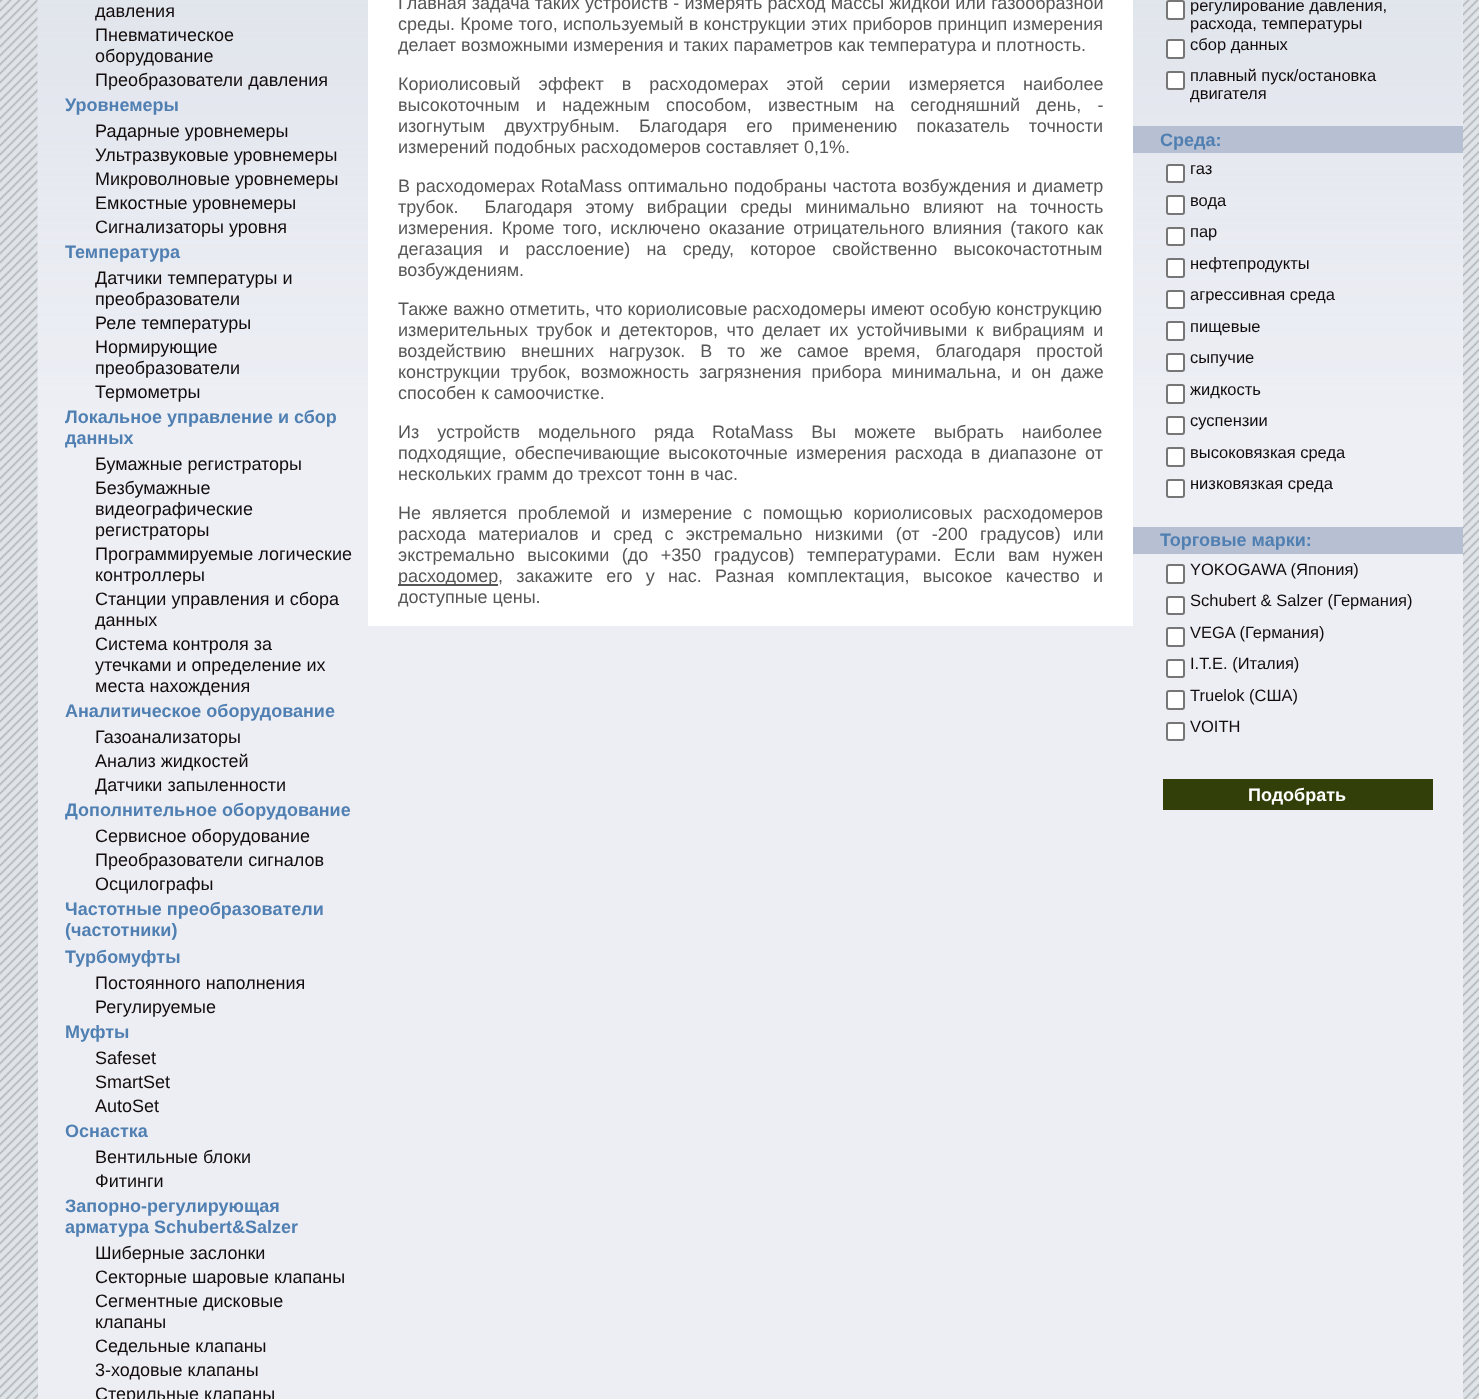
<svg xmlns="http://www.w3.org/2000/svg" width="1479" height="1399">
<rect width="100%" height="100%" fill="#dfe4e8"/>
<image x="0" y="0" width="1479" height="1399" href="media/1.png"/>
<rect x="38" width="1425" height="1399" fill="#edeef4"/>
<image x="37" y="0" width="1426" height="600" href="media/2.png"/>
<text x="95" y="17" style="font-family:Liberation Sans;font-size:18px;fill:#120c0d">давления</text>
<text x="95" y="41" style="font-family:Liberation Sans;font-size:18px;fill:#120c0d">Пневматическое</text>
<text x="95" y="62" style="font-family:Liberation Sans;font-size:18px;fill:#120c0d">оборудование</text>
<text x="95" y="86" style="font-family:Liberation Sans;font-size:18px;fill:#120c0d">Преобразователи давления</text>
<text x="65" y="111" style="font-family:Liberation Sans;font-size:18px;font-weight:bold;fill:#507fb2">Уровнемеры</text>
<text x="95" y="137" style="font-family:Liberation Sans;font-size:18px;fill:#120c0d">Радарные уровнемеры</text>
<text x="95" y="161" style="font-family:Liberation Sans;font-size:18px;fill:#120c0d">Ультразвуковые уровнемеры</text>
<text x="95" y="185" style="font-family:Liberation Sans;font-size:18px;fill:#120c0d">Микроволновые уровнемеры</text>
<text x="95" y="209" style="font-family:Liberation Sans;font-size:18px;fill:#120c0d">Емкостные уровнемеры</text>
<text x="95" y="233" style="font-family:Liberation Sans;font-size:18px;fill:#120c0d">Сигнализаторы уровня</text>
<text x="65" y="258" style="font-family:Liberation Sans;font-size:18px;font-weight:bold;fill:#507fb2">Температура</text>
<text x="95" y="284" style="font-family:Liberation Sans;font-size:18px;fill:#120c0d">Датчики температуры и</text>
<text x="95" y="305" style="font-family:Liberation Sans;font-size:18px;fill:#120c0d">преобразователи</text>
<text x="95" y="329" style="font-family:Liberation Sans;font-size:18px;fill:#120c0d">Реле температуры</text>
<text x="95" y="353" style="font-family:Liberation Sans;font-size:18px;fill:#120c0d">Нормирующие</text>
<text x="95" y="374" style="font-family:Liberation Sans;font-size:18px;fill:#120c0d">преобразователи</text>
<text x="95" y="398" style="font-family:Liberation Sans;font-size:18px;fill:#120c0d">Термометры</text>
<text x="65" y="423" style="font-family:Liberation Sans;font-size:18px;font-weight:bold;fill:#507fb2">Локальное управление и сбор</text>
<text x="65" y="444" style="font-family:Liberation Sans;font-size:18px;font-weight:bold;fill:#507fb2">данных</text>
<text x="95" y="470" style="font-family:Liberation Sans;font-size:18px;fill:#120c0d">Бумажные регистраторы</text>
<text x="95" y="494" style="font-family:Liberation Sans;font-size:18px;fill:#120c0d">Безбумажные</text>
<text x="95" y="515" style="font-family:Liberation Sans;font-size:18px;fill:#120c0d">видеографические</text>
<text x="95" y="536" style="font-family:Liberation Sans;font-size:18px;fill:#120c0d">регистраторы</text>
<text x="95" y="560" style="font-family:Liberation Sans;font-size:18px;fill:#120c0d">Программируемые логические</text>
<text x="95" y="581" style="font-family:Liberation Sans;font-size:18px;fill:#120c0d">контроллеры</text>
<text x="95" y="605" style="font-family:Liberation Sans;font-size:18px;fill:#120c0d">Станции управления и сбора</text>
<text x="95" y="626" style="font-family:Liberation Sans;font-size:18px;fill:#120c0d">данных</text>
<text x="95" y="650" style="font-family:Liberation Sans;font-size:18px;fill:#120c0d">Система контроля за</text>
<text x="95" y="671" style="font-family:Liberation Sans;font-size:18px;fill:#120c0d">утечками и определение их</text>
<text x="95" y="692" style="font-family:Liberation Sans;font-size:18px;fill:#120c0d">места нахождения</text>
<text x="65" y="717" style="font-family:Liberation Sans;font-size:18px;font-weight:bold;fill:#507fb2">Аналитическое оборудование</text>
<text x="95" y="743" style="font-family:Liberation Sans;font-size:18px;fill:#120c0d">Газоанализаторы</text>
<text x="95" y="767" style="font-family:Liberation Sans;font-size:18px;fill:#120c0d">Анализ жидкостей</text>
<text x="95" y="791" style="font-family:Liberation Sans;font-size:18px;fill:#120c0d">Датчики запыленности</text>
<text x="65" y="816" style="font-family:Liberation Sans;font-size:18px;font-weight:bold;fill:#507fb2">Дополнительное оборудование</text>
<text x="95" y="842" style="font-family:Liberation Sans;font-size:18px;fill:#120c0d">Сервисное оборудование</text>
<text x="95" y="866" style="font-family:Liberation Sans;font-size:18px;fill:#120c0d">Преобразователи сигналов</text>
<text x="95" y="890" style="font-family:Liberation Sans;font-size:18px;fill:#120c0d">Осцилографы</text>
<text x="65" y="915" style="font-family:Liberation Sans;font-size:18px;font-weight:bold;fill:#507fb2">Частотные преобразователи</text>
<text x="65" y="936" style="font-family:Liberation Sans;font-size:18px;font-weight:bold;fill:#507fb2">(частотники)</text>
<text x="65" y="963" style="font-family:Liberation Sans;font-size:18px;font-weight:bold;fill:#507fb2">Турбомуфты</text>
<text x="95" y="989" style="font-family:Liberation Sans;font-size:18px;fill:#120c0d">Постоянного наполнения</text>
<text x="95" y="1013" style="font-family:Liberation Sans;font-size:18px;fill:#120c0d">Регулируемые</text>
<text x="65" y="1038" style="font-family:Liberation Sans;font-size:18px;font-weight:bold;fill:#507fb2">Муфты</text>
<text x="95" y="1064" style="font-family:Liberation Sans;font-size:18px;fill:#120c0d">Safeset</text>
<text x="95" y="1088" style="font-family:Liberation Sans;font-size:18px;fill:#120c0d">SmartSet</text>
<text x="95" y="1112" style="font-family:Liberation Sans;font-size:18px;fill:#120c0d">AutoSet</text>
<text x="65" y="1137" style="font-family:Liberation Sans;font-size:18px;font-weight:bold;fill:#507fb2">Оснастка</text>
<text x="95" y="1163" style="font-family:Liberation Sans;font-size:18px;fill:#120c0d">Вентильные блоки</text>
<text x="95" y="1187" style="font-family:Liberation Sans;font-size:18px;fill:#120c0d">Фитинги</text>
<text x="65" y="1212" style="font-family:Liberation Sans;font-size:18px;font-weight:bold;fill:#507fb2">Запорно-регулирующая</text>
<text x="65" y="1233" style="font-family:Liberation Sans;font-size:18px;font-weight:bold;fill:#507fb2">арматура Schubert&amp;Salzer</text>
<text x="95" y="1259" style="font-family:Liberation Sans;font-size:18px;fill:#120c0d">Шиберные заслонки</text>
<text x="95" y="1283" style="font-family:Liberation Sans;font-size:18px;fill:#120c0d">Секторные шаровые клапаны</text>
<text x="95" y="1307" style="font-family:Liberation Sans;font-size:18px;fill:#120c0d">Сегментные дисковые</text>
<text x="95" y="1328" style="font-family:Liberation Sans;font-size:18px;fill:#120c0d">клапаны</text>
<text x="95" y="1352" style="font-family:Liberation Sans;font-size:18px;fill:#120c0d">Седельные клапаны</text>
<text x="95" y="1376" style="font-family:Liberation Sans;font-size:18px;fill:#120c0d">3-ходовые клапаны</text>
<text x="95" y="1400" style="font-family:Liberation Sans;font-size:18px;fill:#120c0d">Стерильные клапаны</text>
<rect x="368" width="765" height="626" fill="#fff"/>
<text x="398" y="9" word-spacing="0.25" style="font-family:Liberation Sans;font-size:18px;fill:#575757">Главная задача таких устройств - измерять расход массы жидкой или газообразной</text>
<text x="398" y="30" word-spacing="0.25" style="font-family:Liberation Sans;font-size:18px;fill:#575757">среды. Кроме того, используемый в конструкции этих приборов принцип измерения</text>
<text x="398" y="51" style="font-family:Liberation Sans;font-size:18px;fill:#575757">делает возможными измерения и таких параметров как температура и плотность.</text>
<text x="398" y="90" word-spacing="13" style="font-family:Liberation Sans;font-size:18px;fill:#575757">Кориолисовый эффект в расходомерах этой серии измеряется наиболее</text>
<text x="398" y="111" word-spacing="11.25" style="font-family:Liberation Sans;font-size:18px;fill:#575757">высокоточным и надежным способом, известным на сегодняшний день, -</text>
<text x="398" y="132" word-spacing="14.25" style="font-family:Liberation Sans;font-size:18px;fill:#575757">изогнутым двухтрубным. Благодаря его применению показатель точности</text>
<text x="398" y="153" style="font-family:Liberation Sans;font-size:18px;fill:#575757">измерений подобных расходомеров составляет 0,1%.</text>
<text x="398" y="192" word-spacing="0.75" style="font-family:Liberation Sans;font-size:18px;fill:#575757">В расходомерах RotaMass оптимально подобраны частота возбуждения и диаметр</text>
<text x="398" y="213" word-spacing="8" style="font-family:Liberation Sans;font-size:18px;fill:#575757" xml:space="preserve">трубок.  Благодаря этому вибрации среды минимально влияют на точность</text>
<text x="398" y="234" word-spacing="3.25" style="font-family:Liberation Sans;font-size:18px;fill:#575757">измерения. Кроме того, исключено оказание отрицательного влияния (такого как</text>
<text x="398" y="255" word-spacing="11.25" style="font-family:Liberation Sans;font-size:18px;fill:#575757">дегазация и расслоение) на среду, которое свойственно высокочастотным</text>
<text x="398" y="276" style="font-family:Liberation Sans;font-size:18px;fill:#575757">возбуждениям.</text>
<text x="398" y="315" style="font-family:Liberation Sans;font-size:18px;fill:#575757">Также важно отметить, что кориолисовые расходомеры имеют особую конструкцию</text>
<text x="398" y="336" word-spacing="3.6" style="font-family:Liberation Sans;font-size:18px;fill:#575757">измерительных трубок и детекторов, что делает их устойчивыми к вибрациям и</text>
<text x="398" y="357" word-spacing="10" style="font-family:Liberation Sans;font-size:18px;fill:#575757">воздействию внешних нагрузок. В то же самое время, благодаря простой</text>
<text x="398" y="378" word-spacing="5" style="font-family:Liberation Sans;font-size:18px;fill:#575757">конструкции трубок, возможность загрязнения прибора минимальна, и он даже</text>
<text x="398" y="399" style="font-family:Liberation Sans;font-size:18px;fill:#575757">способен к самоочистке.</text>
<text x="398" y="438" word-spacing="13" style="font-family:Liberation Sans;font-size:18px;fill:#575757">Из устройств модельного ряда RotaMass Вы можете выбрать наиболее</text>
<text x="398" y="459" word-spacing="3.25" style="font-family:Liberation Sans;font-size:18px;fill:#575757">подходящие, обеспечивающие высокоточные измерения расхода в диапазоне от</text>
<text x="398" y="480" style="font-family:Liberation Sans;font-size:18px;fill:#575757">нескольких грамм до трехсот тонн в час.</text>
<text x="398" y="519" word-spacing="5.75" style="font-family:Liberation Sans;font-size:18px;fill:#575757">Не является проблемой и измерение с помощью кориолисовых расходомеров</text>
<text x="398" y="540" word-spacing="7.25" style="font-family:Liberation Sans;font-size:18px;fill:#575757">расхода материалов и сред с экстремально низкими (от -200 градусов) или</text>
<text x="398" y="561" word-spacing="7.5" style="font-family:Liberation Sans;font-size:18px;fill:#575757">экстремально высокими (до +350 градусов) температурами. Если вам нужен</text>
<rect x="398" y="584" width="100" height="2" fill="#575757"/>
<text x="398" y="582" style="font-family:Liberation Sans;font-size:18px;fill:#575757">расходомер</text>
<text x="498" y="582" word-spacing="8.25" style="font-family:Liberation Sans;font-size:18px;fill:#575757">, закажите его у нас. Разная комплектация, высокое качество и</text>
<text x="398" y="603" style="font-family:Liberation Sans;font-size:18px;fill:#575757">доступные цены.</text>
<rect x="1167" y="1" width="17" height="18" rx="2" fill="#fff" stroke="#767676" stroke-width="2"/>
<text x="1190" y="11" style="font-family:Liberation Sans;font-size:16.5px;fill:#120c0d">регулирование давления,</text>
<text x="1190" y="29" style="font-family:Liberation Sans;font-size:16.5px;fill:#120c0d">расхода, температуры</text>
<rect x="1167" y="40" width="17" height="18" rx="2" fill="#fff" stroke="#767676" stroke-width="2"/>
<text x="1190" y="50" style="font-family:Liberation Sans;font-size:16.5px;fill:#120c0d">сбор данных</text>
<rect x="1167" y="72" width="17" height="17" rx="2" fill="#fff" stroke="#767676" stroke-width="2"/>
<text x="1190" y="81" style="font-family:Liberation Sans;font-size:16.5px;fill:#120c0d">плавный пуск/остановка</text>
<text x="1190" y="99" style="font-family:Liberation Sans;font-size:16.5px;fill:#120c0d">двигателя</text>
<rect x="1133" y="126" width="330" height="27" fill="#b7bfd2"/>
<text x="1160" y="146" style="font-family:Liberation Sans;font-size:18px;font-weight:bold;fill:#507fb2">Среда:</text>
<rect x="1167" y="165" width="17" height="17" rx="2" fill="#fff" stroke="#767676" stroke-width="2"/>
<text x="1190" y="174" style="font-family:Liberation Sans;font-size:16.5px;fill:#120c0d">газ</text>
<rect x="1167" y="196" width="17" height="18" rx="2" fill="#fff" stroke="#767676" stroke-width="2"/>
<text x="1190" y="206" style="font-family:Liberation Sans;font-size:16.5px;fill:#120c0d">вода</text>
<rect x="1167" y="228" width="17" height="17" rx="2" fill="#fff" stroke="#767676" stroke-width="2"/>
<text x="1190" y="237" style="font-family:Liberation Sans;font-size:16.5px;fill:#120c0d">пар</text>
<rect x="1167" y="259" width="17" height="18" rx="2" fill="#fff" stroke="#767676" stroke-width="2"/>
<text x="1190" y="269" style="font-family:Liberation Sans;font-size:16.5px;fill:#120c0d">нефтепродукты</text>
<rect x="1167" y="291" width="17" height="17" rx="2" fill="#fff" stroke="#767676" stroke-width="2"/>
<text x="1190" y="300" style="font-family:Liberation Sans;font-size:16.5px;fill:#120c0d">агрессивная среда</text>
<rect x="1167" y="322" width="17" height="18" rx="2" fill="#fff" stroke="#767676" stroke-width="2"/>
<text x="1190" y="332" style="font-family:Liberation Sans;font-size:16.5px;fill:#120c0d">пищевые</text>
<rect x="1167" y="354" width="17" height="17" rx="2" fill="#fff" stroke="#767676" stroke-width="2"/>
<text x="1190" y="363" style="font-family:Liberation Sans;font-size:16.5px;fill:#120c0d">сыпучие</text>
<rect x="1167" y="385" width="17" height="18" rx="2" fill="#fff" stroke="#767676" stroke-width="2"/>
<text x="1190" y="395" style="font-family:Liberation Sans;font-size:16.5px;fill:#120c0d">жидкость</text>
<rect x="1167" y="417" width="17" height="17" rx="2" fill="#fff" stroke="#767676" stroke-width="2"/>
<text x="1190" y="426" style="font-family:Liberation Sans;font-size:16.5px;fill:#120c0d">суспензии</text>
<rect x="1167" y="448" width="17" height="18" rx="2" fill="#fff" stroke="#767676" stroke-width="2"/>
<text x="1190" y="458" style="font-family:Liberation Sans;font-size:16.5px;fill:#120c0d">высоковязкая среда</text>
<rect x="1167" y="480" width="17" height="17" rx="2" fill="#fff" stroke="#767676" stroke-width="2"/>
<text x="1190" y="489" style="font-family:Liberation Sans;font-size:16.5px;fill:#120c0d">низковязкая среда</text>
<rect x="1133" y="527" width="330" height="27" fill="#b7bfd2"/>
<text x="1160" y="546" style="font-family:Liberation Sans;font-size:18px;font-weight:bold;fill:#507fb2">Торговые марки:</text>
<rect x="1167" y="565" width="17" height="18" rx="2" fill="#fff" stroke="#767676" stroke-width="2"/>
<text x="1190" y="575" style="font-family:Liberation Sans;font-size:16.5px;fill:#120c0d">YOKOGAWA (Япония)</text>
<rect x="1167" y="597" width="17" height="17" rx="2" fill="#fff" stroke="#767676" stroke-width="2"/>
<text x="1190" y="606" style="font-family:Liberation Sans;font-size:16.5px;fill:#120c0d">Schubert &amp; Salzer (Германия)</text>
<rect x="1167" y="628" width="17" height="18" rx="2" fill="#fff" stroke="#767676" stroke-width="2"/>
<text x="1190" y="638" style="font-family:Liberation Sans;font-size:16.5px;fill:#120c0d">VEGA (Германия)</text>
<rect x="1167" y="660" width="17" height="17" rx="2" fill="#fff" stroke="#767676" stroke-width="2"/>
<text x="1190" y="669" style="font-family:Liberation Sans;font-size:16.5px;fill:#120c0d">I.T.E. (Италия)</text>
<rect x="1167" y="691" width="17" height="18" rx="2" fill="#fff" stroke="#767676" stroke-width="2"/>
<text x="1190" y="701" style="font-family:Liberation Sans;font-size:16.5px;fill:#120c0d">Truelok (США)</text>
<rect x="1167" y="723" width="17" height="17" rx="2" fill="#fff" stroke="#767676" stroke-width="2"/>
<text x="1190" y="732" style="font-family:Liberation Sans;font-size:16.5px;fill:#120c0d">VOITH</text>
<rect x="1163" y="779" width="270" height="31" fill="#323f09"/>
<text x="1248" y="801" style="font-family:Liberation Sans;font-size:18px;font-weight:bold;fill:#fff">Подобрать</text>
</svg>
